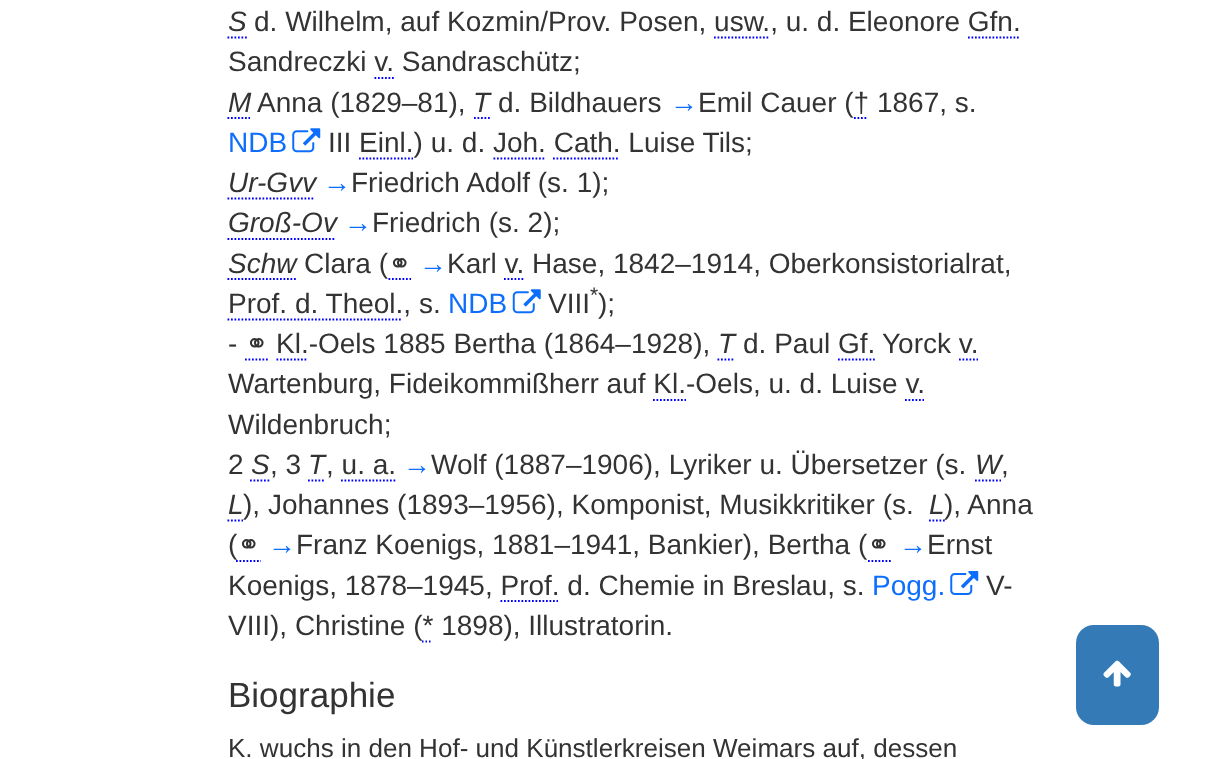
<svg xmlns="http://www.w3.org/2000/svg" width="1210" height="759">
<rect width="100%" height="100%" fill="#fff"/>
<text x="228" y="31" style="font-family:Liberation Sans;font-size:28px;font-style:italic;fill:#333">S</text>
<path d="M227.5 37.5h19.5" fill="none" stroke="#00f" stroke-width="1.8" stroke-dasharray="1.75 1.75"/>
<text x="254" y="31" style="font-family:Liberation Sans;font-size:28px;fill:#333">d. Wilhelm, auf Kozmin/Prov. Posen, usw., u. d. Eleonore Gfn.</text>
<path d="M714 37.5h56" fill="none" stroke="#00f" stroke-width="1.8" stroke-dasharray="1.75 1.75"/>
<path d="M968 37.5h52" fill="none" stroke="#00f" stroke-width="1.8" stroke-dasharray="1.75 1.75"/>
<text x="228" y="71" style="font-family:Liberation Sans;font-size:28px;fill:#333">Sandreczki v. Sandraschütz;</text>
<path d="M374.5 78h19.5" fill="none" stroke="#00f" stroke-width="1.8" stroke-dasharray="1.75 1.75"/>
<text x="228" y="112" style="font-family:Liberation Sans;font-size:28px;font-style:italic;fill:#333">M</text>
<path d="M227.5 118h22.5" fill="none" stroke="#00f" stroke-width="1.8" stroke-dasharray="1.75 1.75"/>
<text x="257" y="112" style="font-family:Liberation Sans;font-size:28px;fill:#333">Anna (1829–81),</text>
<text x="473" y="112" style="font-family:Liberation Sans;font-size:28px;font-style:italic;fill:#333">T</text>
<path d="M474 118h16" fill="none" stroke="#00f" stroke-width="1.8" stroke-dasharray="1.75 1.75"/>
<text x="498" y="112" style="font-family:Liberation Sans;font-size:28px;fill:#333">d. Bildhauers</text>
<text x="670" y="112" style="font-family:Liberation Sans;font-size:28px;fill:#0d6efd">→</text>
<text x="698" y="112" style="font-family:Liberation Sans;font-size:28px;fill:#333">Emil Cauer († 1867, s.</text>
<path d="M854 118h14" fill="none" stroke="#00f" stroke-width="1.8" stroke-dasharray="1.75 1.75"/>
<text x="228" y="152" style="font-family:Liberation Sans;font-size:28px;fill:#0d6efd">NDB</text>
<image x="292" y="128" width="29" height="25" href="media/1.png"/>
<text x="328" y="152" style="font-family:Liberation Sans;font-size:28px;fill:#333">III Einl.) u. d. Joh. Cath. Luise Tils;</text>
<path d="M359 158.5h54" fill="none" stroke="#00f" stroke-width="1.8" stroke-dasharray="1.75 1.75"/>
<path d="M493.5 158.5h52.5" fill="none" stroke="#00f" stroke-width="1.8" stroke-dasharray="1.75 1.75"/>
<path d="M553 158.5h66.5" fill="none" stroke="#00f" stroke-width="1.8" stroke-dasharray="1.75 1.75"/>
<text x="228" y="192" style="font-family:Liberation Sans;font-size:28px;font-style:italic;fill:#333">Ur-Gvv</text>
<path d="M227.5 198.5h87.5" fill="none" stroke="#00f" stroke-width="1.8" stroke-dasharray="1.75 1.75"/>
<text x="323" y="192" style="font-family:Liberation Sans;font-size:28px;fill:#0d6efd">→</text>
<text x="351" y="192" style="font-family:Liberation Sans;font-size:28px;fill:#333">Friedrich Adolf (s. 1);</text>
<text x="228" y="232" style="font-family:Liberation Sans;font-size:28px;font-style:italic;fill:#333">Groß-Ov</text>
<path d="M227.5 239h108.5" fill="none" stroke="#00f" stroke-width="1.8" stroke-dasharray="1.75 1.75"/>
<text x="344" y="232" style="font-family:Liberation Sans;font-size:28px;fill:#0d6efd">→</text>
<text x="372" y="232" style="font-family:Liberation Sans;font-size:28px;fill:#333">Friedrich (s. 2);</text>
<text x="228" y="273" style="font-family:Liberation Sans;font-size:28px;font-style:italic;fill:#333">Schw</text>
<path d="M227.5 279h68.5" fill="none" stroke="#00f" stroke-width="1.8" stroke-dasharray="1.75 1.75"/>
<text x="304" y="273" style="font-family:Liberation Sans;font-size:28px;fill:#333">Clara (</text>
<text x="388" y="273" style="font-family:DejaVu Sans;font-size:28px;fill:#333">⚭</text>
<path d="M388.5 279h22.5" fill="none" stroke="#00f" stroke-width="1.8" stroke-dasharray="1.75 1.75"/>
<text x="419" y="273" style="font-family:Liberation Sans;font-size:28px;fill:#0d6efd">→</text>
<text x="447" y="273" style="font-family:Liberation Sans;font-size:28px;fill:#333">Karl v. Hase, 1842–1914, Oberkonsistorialrat,</text>
<path d="M504 279h21" fill="none" stroke="#00f" stroke-width="1.8" stroke-dasharray="1.75 1.75"/>
<text x="228" y="313" style="font-family:Liberation Sans;font-size:28px;fill:#333">Prof. d. Theol., s.</text>
<path d="M227.5 319.5h175" fill="none" stroke="#00f" stroke-width="1.8" stroke-dasharray="1.75 1.75"/>
<text x="448" y="313" style="font-family:Liberation Sans;font-size:28px;fill:#0d6efd">NDB</text>
<image x="512" y="289" width="29" height="25" href="media/2.png"/>
<text x="548" y="313" style="font-family:Liberation Sans;font-size:28px;fill:#333">VIII</text>
<text x="590" y="302" style="font-family:Liberation Sans;font-size:21px;fill:#333">*</text>
<text x="598" y="313" style="font-family:Liberation Sans;font-size:28px;fill:#333">);</text>
<text x="228" y="353" style="font-family:Liberation Sans;font-size:28px;fill:#333">-</text>
<text x="245" y="353" style="font-family:DejaVu Sans;font-size:28px;fill:#333">⚭</text>
<path d="M245 359.5h23" fill="none" stroke="#00f" stroke-width="1.8" stroke-dasharray="1.75 1.75"/>
<path d="M276.5 359.5h31.5" fill="none" stroke="#00f" stroke-width="1.8" stroke-dasharray="1.75 1.75"/>
<text x="276" y="353" style="font-family:Liberation Sans;font-size:28px;fill:#333">Kl.-Oels 1885 Bertha (1864–1928),</text>
<text x="718" y="353" style="font-family:Liberation Sans;font-size:28px;font-style:italic;fill:#333">T</text>
<path d="M717.5 359.5h17.5" fill="none" stroke="#00f" stroke-width="1.8" stroke-dasharray="1.75 1.75"/>
<text x="743" y="353" style="font-family:Liberation Sans;font-size:28px;fill:#333">d. Paul Gf.</text>
<text x="882" y="353" style="font-family:Liberation Sans;font-size:28px;fill:#333">Yorck v.</text>
<path d="M838 359.5h37" fill="none" stroke="#00f" stroke-width="1.8" stroke-dasharray="1.75 1.75"/>
<path d="M959 359.5h19" fill="none" stroke="#00f" stroke-width="1.8" stroke-dasharray="1.75 1.75"/>
<text x="228" y="393" style="font-family:Liberation Sans;font-size:28px;fill:#333">Wartenburg, Fideikommißherr auf Kl.-Oels, u. d. Luise v.</text>
<path d="M653 400h33" fill="none" stroke="#00f" stroke-width="1.8" stroke-dasharray="1.75 1.75"/>
<path d="M905 400h19" fill="none" stroke="#00f" stroke-width="1.8" stroke-dasharray="1.75 1.75"/>
<text x="228" y="434" style="font-family:Liberation Sans;font-size:28px;fill:#333">Wildenbruch;</text>
<text x="228" y="474" style="font-family:Liberation Sans;font-size:28px;fill:#333">2</text>
<text x="251" y="474" style="font-family:Liberation Sans;font-size:28px;font-style:italic;fill:#333">S</text>
<path d="M250 480.5h19.5" fill="none" stroke="#00f" stroke-width="1.8" stroke-dasharray="1.75 1.75"/>
<text x="270" y="474" style="font-family:Liberation Sans;font-size:28px;fill:#333">, 3</text>
<text x="308" y="474" style="font-family:Liberation Sans;font-size:28px;font-style:italic;fill:#333">T</text>
<path d="M308 480.5h17.5" fill="none" stroke="#00f" stroke-width="1.8" stroke-dasharray="1.75 1.75"/>
<text x="326" y="474" style="font-family:Liberation Sans;font-size:28px;fill:#333">, u. a.</text>
<text x="403" y="474" style="font-family:Liberation Sans;font-size:28px;fill:#0d6efd">→</text>
<text x="431" y="474" style="font-family:Liberation Sans;font-size:28px;fill:#333">Wolf (1887–1906), Lyriker u. Übersetzer (s.</text>
<text x="975" y="474" style="font-family:Liberation Sans;font-size:28px;font-style:italic;fill:#333">W</text>
<path d="M975 480.5h26" fill="none" stroke="#00f" stroke-width="1.8" stroke-dasharray="1.75 1.75"/>
<text x="1001" y="474" style="font-family:Liberation Sans;font-size:28px;fill:#333">,</text>
<path d="M341 480.5h54.5" fill="none" stroke="#00f" stroke-width="1.8" stroke-dasharray="1.75 1.75"/>
<text x="228" y="514" style="font-family:Liberation Sans;font-size:28px;font-style:italic;fill:#333">L</text>
<path d="M227.5 520.5h15.5" fill="none" stroke="#00f" stroke-width="1.8" stroke-dasharray="1.75 1.75"/>
<text x="243" y="514" style="font-family:Liberation Sans;font-size:28px;fill:#333">), Johannes (1893–1956), Komponist, Musikkritiker (s.</text>
<text x="929" y="514" style="font-family:Liberation Sans;font-size:28px;font-style:italic;fill:#333">L</text>
<path d="M929 520.5h16" fill="none" stroke="#00f" stroke-width="1.8" stroke-dasharray="1.75 1.75"/>
<text x="944" y="514" style="font-family:Liberation Sans;font-size:28px;fill:#333">), Anna</text>
<text x="228" y="554" style="font-family:Liberation Sans;font-size:28px;fill:#333">(</text>
<text x="237" y="554" style="font-family:DejaVu Sans;font-size:28px;fill:#333">⚭</text>
<path d="M236 561h25" fill="none" stroke="#00f" stroke-width="1.8" stroke-dasharray="1.75 1.75"/>
<text x="268" y="554" style="font-family:Liberation Sans;font-size:28px;fill:#0d6efd">→</text>
<text x="296" y="554" style="font-family:Liberation Sans;font-size:28px;fill:#333">Franz Koenigs, 1881–1941, Bankier), Bertha (</text>
<text x="867" y="554" style="font-family:DejaVu Sans;font-size:28px;fill:#333">⚭</text>
<path d="M868 561h23" fill="none" stroke="#00f" stroke-width="1.8" stroke-dasharray="1.75 1.75"/>
<text x="899" y="554" style="font-family:Liberation Sans;font-size:28px;fill:#0d6efd">→</text>
<text x="927" y="554" style="font-family:Liberation Sans;font-size:28px;fill:#333">Ernst</text>
<text x="228" y="595" style="font-family:Liberation Sans;font-size:28px;fill:#333">Koenigs, 1878–1945, Prof. d. Chemie in Breslau, s.</text>
<text x="872" y="595" style="font-family:Liberation Sans;font-size:28px;fill:#0d6efd">Pogg.</text>
<image x="950" y="571" width="29" height="24" href="media/3.png"/>
<text x="986" y="595" style="font-family:Liberation Sans;font-size:28px;fill:#333">V-</text>
<path d="M500.5 601h57.5" fill="none" stroke="#00f" stroke-width="1.8" stroke-dasharray="1.75 1.75"/>
<text x="228" y="635" style="font-family:Liberation Sans;font-size:28px;fill:#333">VIII), Christine (* 1898), Illustratorin.</text>
<path d="M422 641.5h1.5m2 0h1.5m2 0h1.5" fill="none" stroke="#00f" stroke-width="1.8"/>
<text x="228" y="707" style="font-family:Liberation Sans;font-size:35px;fill:#333">Biographie</text>
<text x="228" y="757" style="font-family:Liberation Sans;font-size:26.05px;fill:#333">K. wuchs in den Hof- und Künstlerkreisen Weimars auf, dessen</text>
<rect x="1076" y="625" width="83" height="100" rx="18" fill="#337ab7"/>
<image x="1103" y="660" width="28" height="27" href="media/4.png"/>
</svg>
